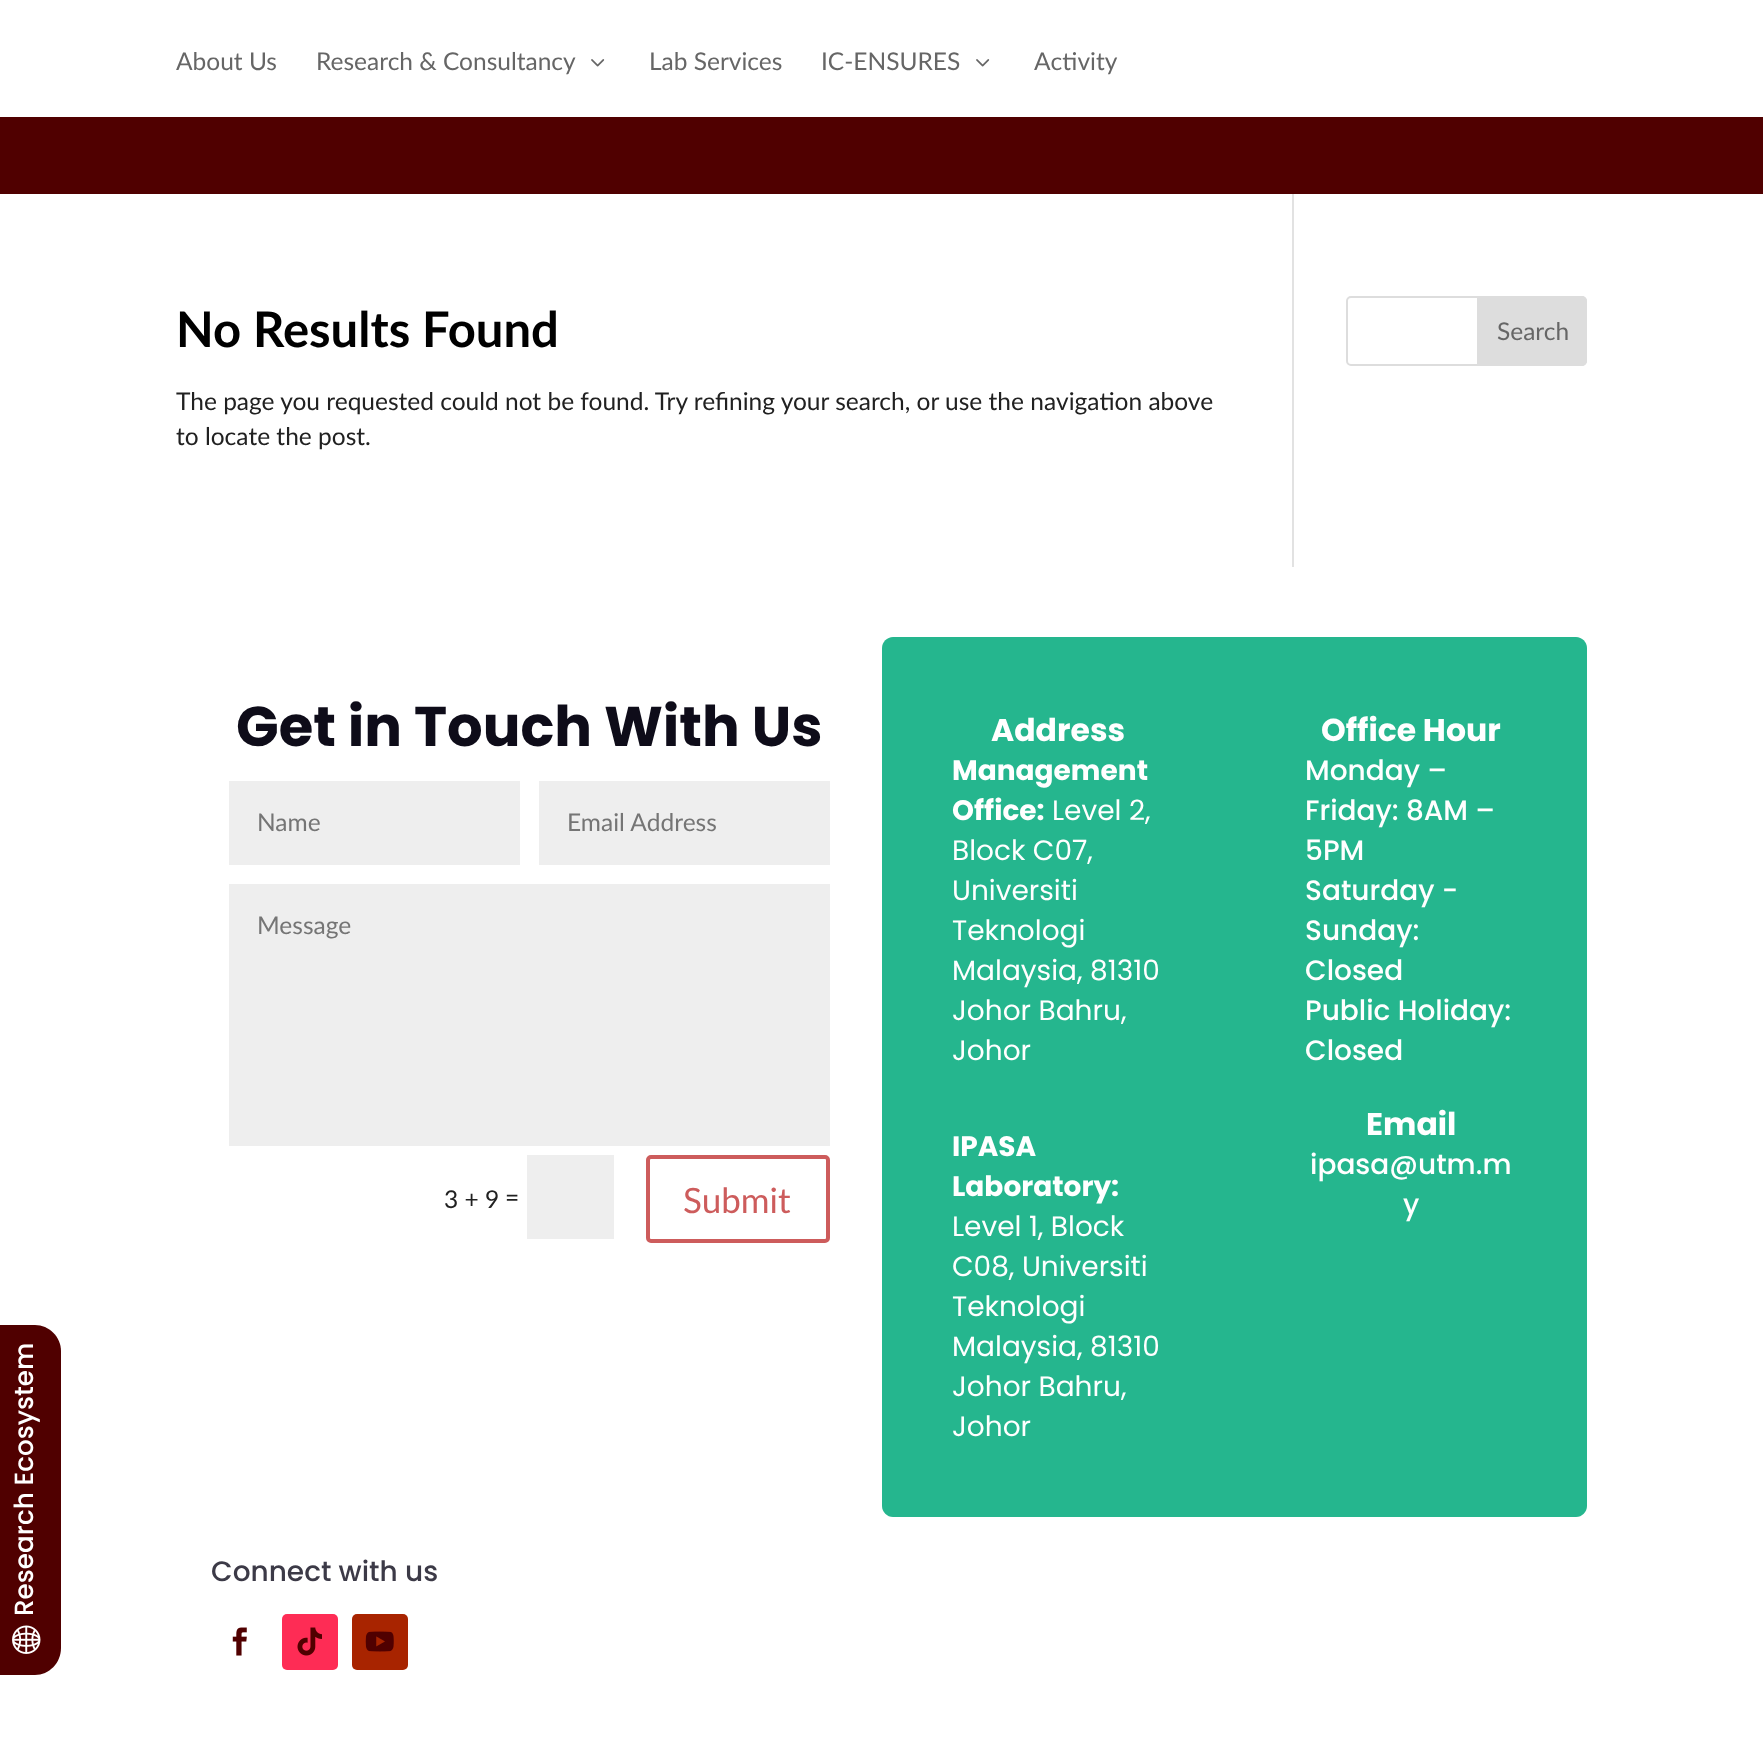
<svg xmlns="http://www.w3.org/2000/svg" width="1763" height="1761">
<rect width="100%" height="100%" fill="#500000"/>
<rect y="194" width="1763" height="1567" fill="#fff"/>
<path d="M0 1675v-350h35c14 0 26 12 26 26v297c0 15-12 27-26 27z" fill="#500000"/>
<text x="33" y="1616" transform="rotate(-90 33 1616)" style="font-family:Poppins;font-size:26.25px;font-weight:500;fill:#fff">Research Ecosystem</text>
<image x="12" y="1625" width="29" height="29" href="media/1.png"/>
<rect width="1763" height="117" fill="#fff"/>
<text x="176" y="70" style="font-family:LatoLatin;font-size:24.5px;fill:#666">About Us</text>
<text x="316" y="70" style="font-family:LatoLatin;font-size:24.5px;fill:#666">Research &amp; Consultancy</text>
<image x="591" y="59" width="14" height="8" href="media/2.png"/>
<text x="649" y="70" style="font-family:LatoLatin;font-size:24.5px;fill:#666">Lab Services</text>
<text x="821" y="70" style="font-family:LatoLatin;font-size:24.5px;fill:#666">IC-ENSURES</text>
<image x="976" y="59" width="14" height="8" href="media/2.png"/>
<text x="1034" y="70" style="font-family:LatoLatin;font-size:24.5px;fill:#666">Activity</text>
<rect x="1292" y="194" width="2" height="373" fill="#e2e2e2"/>
<text x="176" y="347" style="font-family:LatoLatin;font-size:49px;font-weight:bold;fill:#000">No Results Found</text>
<text x="176" y="410" style="font-family:LatoLatin;font-size:24.5px;fill:#212121">The page you requested could not be found. Try refining your search, or use the navigation above</text>
<text x="176" y="445" style="font-family:LatoLatin;font-size:24.5px;fill:#212121">to locate the post.</text>
<rect x="1347" y="297" width="239" height="68" rx="4" fill="none" stroke="#ddd" stroke-width="2"/>
<path d="M1478 297h104c2 0 4 2 4 4v60c0 2-2 4-4 4h-104z" fill="#ddd" stroke="#ddd" stroke-width="2"/>
<text x="1497" y="340" style="font-family:LatoLatin;font-size:24.5px;fill:#666">Search</text>
<text x="236" y="746" style="font-family:Poppins;font-size:56px;font-weight:bold;fill:#0e0c19">Get in Touch With Us</text>
<rect x="229" y="781" width="291" height="84" fill="#eee"/>
<text x="257" y="831" style="font-family:LatoLatin;font-size:24.5px;fill:#757575">Name</text>
<rect x="539" y="781" width="291" height="84" fill="#eee"/>
<text x="567" y="831" style="font-family:LatoLatin;font-size:24.5px;fill:#757575">Email Address</text>
<rect x="229" y="884" width="601" height="262" fill="#eee"/>
<text x="257" y="934" style="font-family:LatoLatin;font-size:24.5px;fill:#757575">Message</text>
<text x="444" y="1208" style="font-family:LatoLatin;font-size:24.5px;fill:#212121">3 + 9</text>
<text x="505" y="1206" style="font-family:LatoLatin;font-size:24.5px;fill:#212121">=</text>
<rect x="527" y="1155" width="87" height="84" fill="#eee"/>
<rect x="648" y="1157" width="180" height="84" rx="3" fill="none" stroke="#cd5c5c" stroke-width="4"/>
<text x="683" y="1213" style="font-family:LatoLatin;font-size:35px;fill:#cd5c5c">Submit</text>
<path d="M893 637h343v880h-343c-6 0-11-5-11-11v-858c0-6 5-11 11-11z" fill="#25b68e"/>
<text x="991" y="741" style="font-family:Poppins;font-size:31.5px;font-weight:bold;fill:#fff">Address</text>
<text x="952" y="780" style="font-family:Poppins;font-size:28px;font-weight:bold;fill:#fff">Management</text>
<text x="952" y="820" style="font-family:Poppins;font-size:28px;font-weight:bold;fill:#fff">Office:</text>
<text x="1052" y="820" style="font-family:Poppins;font-size:28px;fill:#fff">Level 2,</text>
<text x="952" y="860" style="font-family:Poppins;font-size:28px;fill:#fff">Block C07,</text>
<text x="952" y="900" style="font-family:Poppins;font-size:28px;fill:#fff">Universiti</text>
<text x="952" y="940" style="font-family:Poppins;font-size:28px;fill:#fff">Teknologi</text>
<text x="952" y="980" style="font-family:Poppins;font-size:28px;fill:#fff">Malaysia, 81310</text>
<text x="952" y="1020" style="font-family:Poppins;font-size:28px;fill:#fff">Johor Bahru,</text>
<text x="952" y="1060" style="font-family:Poppins;font-size:28px;fill:#fff">Johor</text>
<text x="952" y="1156" style="font-family:Poppins;font-size:28px;font-weight:bold;fill:#fff">IPASA</text>
<text x="952" y="1196" style="font-family:Poppins;font-size:28px;font-weight:bold;fill:#fff">Laboratory:</text>
<text x="952" y="1236" style="font-family:Poppins;font-size:28px;fill:#fff">Level 1, Block</text>
<text x="952" y="1276" style="font-family:Poppins;font-size:28px;fill:#fff">C08, Universiti</text>
<text x="952" y="1316" style="font-family:Poppins;font-size:28px;fill:#fff">Teknologi</text>
<text x="952" y="1356" style="font-family:Poppins;font-size:28px;fill:#fff">Malaysia, 81310</text>
<text x="952" y="1396" style="font-family:Poppins;font-size:28px;fill:#fff">Johor Bahru,</text>
<text x="952" y="1436" style="font-family:Poppins;font-size:28px;fill:#fff">Johor</text>
<path d="M1236 637h340c6 0 11 5 11 11v858c0 6-5 11-11 11h-340z" fill="#25b68e"/>
<text x="1321" y="741" style="font-family:Poppins;font-size:31.5px;font-weight:bold;fill:#fff">Office Hour</text>
<text x="1305" y="780" style="font-family:Poppins;font-size:28px;font-weight:500;fill:#fff">Monday –</text>
<text x="1305" y="820" style="font-family:Poppins;font-size:28px;font-weight:500;fill:#fff">Friday: 8AM –</text>
<text x="1305" y="860" style="font-family:Poppins;font-size:28px;font-weight:500;fill:#fff">5PM</text>
<text x="1305" y="900" style="font-family:Poppins;font-size:28px;font-weight:500;fill:#fff">Saturday -</text>
<text x="1305" y="940" style="font-family:Poppins;font-size:28px;font-weight:500;fill:#fff">Sunday:</text>
<text x="1305" y="980" style="font-family:Poppins;font-size:28px;font-weight:500;fill:#fff">Closed</text>
<text x="1305" y="1020" style="font-family:Poppins;font-size:28px;font-weight:500;fill:#fff">Public Holiday:</text>
<text x="1305" y="1060" style="font-family:Poppins;font-size:28px;font-weight:500;fill:#fff">Closed</text>
<text x="1366" y="1135" style="font-family:Poppins;font-size:31.5px;font-weight:bold;fill:#fff">Email</text>
<text x="1310" y="1174" style="font-family:Poppins;font-size:28px;font-weight:500;fill:#fff">ipasa@utm.m</text>
<text x="1403" y="1214" style="font-family:Poppins;font-size:28px;font-weight:500;fill:#fff">y</text>
<text x="211" y="1581" style="font-family:Poppins;font-size:28px;font-weight:500;fill:#3c3a47">Connect with us</text>
<image x="232" y="1627" width="15" height="29" href="media/3.png"/>
<rect x="282" y="1614" width="56" height="56" rx="5" fill="#fe2c55"/>
<image x="297" y="1627" width="25" height="29" href="media/4.png"/>
<rect x="352" y="1614" width="56" height="56" rx="5" fill="#a82400"/>
<image x="365" y="1631" width="29" height="21" href="media/5.png"/>
</svg>
